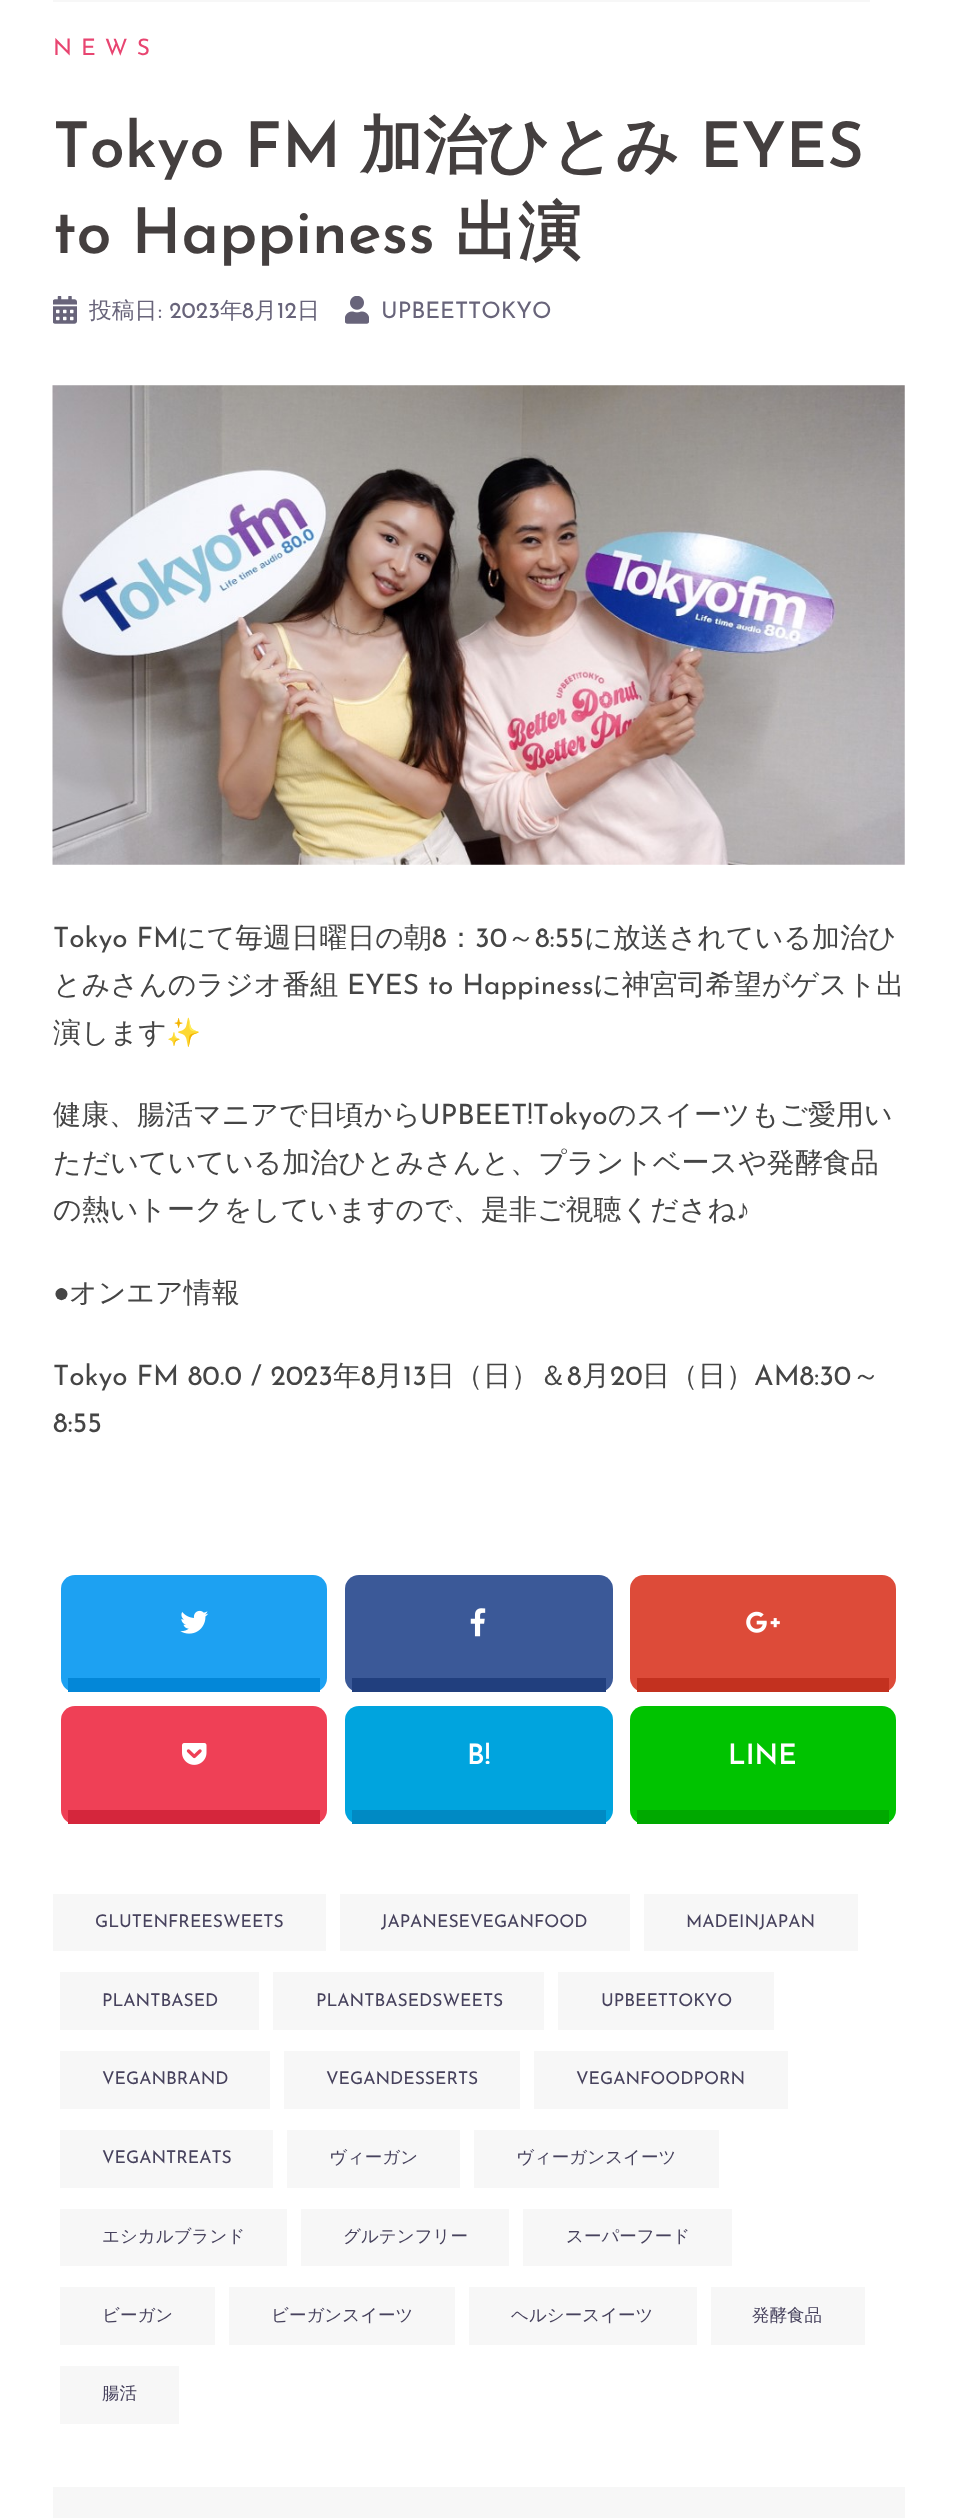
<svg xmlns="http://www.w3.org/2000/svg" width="956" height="2518">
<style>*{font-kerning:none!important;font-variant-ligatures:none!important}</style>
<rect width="100%" height="100%" fill="#fff"/>
<rect x="53" width="817" height="2" fill="#f7f7f7"/>
<text x="53" y="55" style="font-family:Josefin Sans;font-size:22.75px;letter-spacing:9px;fill:#e84571">NEWS</text>
<text x="53" y="167" style="font-family:Josefin Sans;font-size:63px;font-weight:600;fill:#443f3f">Tokyo FM</text>
<text x="360" y="167" style="font-family:WenQuanYi Zen Hei;font-size:63px;font-weight:bold;fill:#443f3f">加治ひとみ</text>
<text x="700" y="167" style="font-family:Josefin Sans;font-size:63px;font-weight:600;fill:#443f3f">EYES</text>
<text x="53" y="253" style="font-family:Josefin Sans;font-size:63px;font-weight:600;fill:#443f3f">to Happiness</text>
<text x="455" y="253" style="font-family:WenQuanYi Zen Hei;font-size:63px;font-weight:bold;fill:#443f3f">出演</text>
<image x="53" y="296" width="24" height="28" href="media/1.png"/>
<text x="89" y="318" style="font-family:WenQuanYi Zen Hei;font-size:22.75px;font-weight:500;fill:#68647a">投稿日</text>
<text x="158" y="318" style="font-family:Josefin Sans;font-size:22.75px;fill:#68647a">: 2023</text>
<text x="220" y="318" style="font-family:WenQuanYi Zen Hei;font-size:22.75px;font-weight:500;fill:#68647a">年</text>
<text x="242" y="318" style="font-family:Josefin Sans;font-size:22.75px;fill:#68647a">8</text>
<text x="254" y="318" style="font-family:WenQuanYi Zen Hei;font-size:22.75px;font-weight:500;fill:#68647a">月</text>
<text x="277" y="318" style="font-family:Josefin Sans;font-size:22.75px;fill:#68647a">12</text>
<text x="297" y="318" style="font-family:WenQuanYi Zen Hei;font-size:22.75px;font-weight:500;fill:#68647a">日</text>
<image x="345" y="296" width="24" height="28" href="media/2.png"/>
<text x="381" y="318" style="font-family:Josefin Sans;font-size:22.75px;fill:#68647a">UPBEETTOKYO</text>
<image x="52" y="385" width="853" height="480" href="media/3.png"/>
<text x="53" y="947" style="font-family:Josefin Sans;font-size:28px;fill:#454545">Tokyo FM</text>
<text x="178" y="947" style="font-family:WenQuanYi Zen Hei;font-size:28px;font-weight:500;fill:#454545">にて毎週日曜日の朝</text>
<text x="432" y="947" style="font-family:Josefin Sans;font-size:28px;fill:#454545">8</text>
<text x="447" y="947" style="font-family:WenQuanYi Zen Hei;font-size:28px;font-weight:500;fill:#454545">：</text>
<text x="475" y="947" style="font-family:Josefin Sans;font-size:28px;fill:#454545">30</text>
<text x="507" y="947" style="font-family:WenQuanYi Zen Hei;font-size:28px;font-weight:500;fill:#454545">～</text>
<text x="535" y="947" style="font-family:Josefin Sans;font-size:28px;fill:#454545">8:55</text>
<text x="584" y="947" style="font-family:WenQuanYi Zen Hei;font-size:28px;font-weight:500;fill:#454545">に放送されている加治ひ</text>
<text x="53" y="994" style="font-family:WenQuanYi Zen Hei;font-size:28px;font-weight:500;fill:#454545">とみさんのラジオ番組</text>
<text x="347" y="994" style="font-family:Josefin Sans;font-size:28px;fill:#454545">EYES to Happiness</text>
<text x="593" y="994" style="font-family:WenQuanYi Zen Hei;font-size:28px;font-weight:500;fill:#454545">に神宮司希望がゲスト出</text>
<text x="53" y="1042" style="font-family:WenQuanYi Zen Hei;font-size:28px;font-weight:500;fill:#454545">演します</text>
<text x="166" y="1042" style="font-family:Noto Color Emoji;font-size:28px;fill:#454545">✨</text>
<text x="53" y="1124" style="font-family:WenQuanYi Zen Hei;font-size:28px;font-weight:500;fill:#454545">健康、腸活マニアで日頃から</text>
<text x="420" y="1124" style="font-family:Josefin Sans;font-size:28px;fill:#454545">UPBEET!Tokyo</text>
<text x="608" y="1124" style="font-family:WenQuanYi Zen Hei;font-size:28px;font-weight:500;fill:#454545">のスイーツもご愛用い</text>
<text x="53" y="1172" style="font-family:WenQuanYi Zen Hei;font-size:28px;font-weight:500;fill:#454545">ただいていている加治ひとみさんと、プラントベースや発酵食品</text>
<text x="53" y="1219" style="font-family:WenQuanYi Zen Hei;font-size:28px;font-weight:500;fill:#454545">の熱いトークをしていますので、是非ご視聴くださね</text>
<text x="736" y="1219" style="font-family:Liberation Serif;font-size:28px;fill:#454545">♪</text>
<text x="53" y="1302" style="font-family:Liberation Serif;font-size:28px;fill:#454545">●</text>
<text x="69" y="1302" style="font-family:WenQuanYi Zen Hei;font-size:28px;font-weight:500;fill:#454545">オンエア情報</text>
<text x="53" y="1385" style="font-family:Josefin Sans;font-size:28px;fill:#454545">Tokyo FM 80.0 / 2023</text>
<text x="333" y="1385" style="font-family:WenQuanYi Zen Hei;font-size:28px;font-weight:500;fill:#454545">年</text>
<text x="361" y="1385" style="font-family:Josefin Sans;font-size:28px;fill:#454545">8</text>
<text x="375" y="1385" style="font-family:WenQuanYi Zen Hei;font-size:28px;font-weight:500;fill:#454545">月</text>
<text x="403" y="1385" style="font-family:Josefin Sans;font-size:28px;fill:#454545">13</text>
<text x="427" y="1385" style="font-family:WenQuanYi Zen Hei;font-size:28px;font-weight:500;fill:#454545">日（日）＆</text>
<text x="567" y="1385" style="font-family:Josefin Sans;font-size:28px;fill:#454545">8</text>
<text x="582" y="1385" style="font-family:WenQuanYi Zen Hei;font-size:28px;font-weight:500;fill:#454545">月</text>
<text x="610" y="1385" style="font-family:Josefin Sans;font-size:28px;fill:#454545">20</text>
<text x="642" y="1385" style="font-family:WenQuanYi Zen Hei;font-size:28px;font-weight:500;fill:#454545">日（日）</text>
<text x="754" y="1385" style="font-family:Josefin Sans;font-size:28px;fill:#454545">AM8:30</text>
<text x="852" y="1385" style="font-family:WenQuanYi Zen Hei;font-size:28px;font-weight:500;fill:#454545">～</text>
<text x="53" y="1432" style="font-family:Josefin Sans;font-size:28px;fill:#454545">8:55</text>
<rect x="61" y="1575" width="266" height="117" rx="14" fill="#1da1f2"/>
<rect x="68" y="1678" width="252" height="14" fill="#0387d8"/>
<image x="180" y="1610" width="29" height="24" href="media/4.png"/>
<rect x="345" y="1575" width="268" height="117" rx="14" fill="#3b5998"/>
<rect x="352" y="1678" width="254" height="14" fill="#213f7e"/>
<image x="470" y="1608" width="16" height="29" href="media/5.png"/>
<rect x="630" y="1575" width="266" height="117" rx="14" fill="#dd4b39"/>
<rect x="637" y="1678" width="252" height="14" fill="#c3311f"/>
<image x="746" y="1611" width="34" height="22" href="media/6.png"/>
<rect x="61" y="1706" width="266" height="118" rx="14" fill="#ef4056"/>
<rect x="68" y="1810" width="252" height="14" fill="#d5263c"/>
<image x="182" y="1743" width="25" height="22" href="media/7.png"/>
<rect x="345" y="1706" width="268" height="118" rx="14" fill="#00a4de"/>
<rect x="352" y="1810" width="254" height="14" fill="#008ac4"/>
<text x="467" y="1764" style="font-family:Josefin Sans;font-size:28px;font-weight:600;fill:#fff">B!</text>
<rect x="630" y="1706" width="266" height="118" rx="14" fill="#00c300"/>
<rect x="637" y="1810" width="252" height="14" fill="#00a900"/>
<text x="728" y="1764" style="font-family:Josefin Sans;font-size:28px;font-weight:600;fill:#fff">LINE</text>
<rect x="53" y="1894" width="273" height="57" fill="#f7f7f7"/>
<text x="95" y="1927" style="font-family:Josefin Sans;font-size:17.5px;fill:#47425d">GLUTENFREESWEETS</text>
<rect x="340" y="1894" width="290" height="57" fill="#f7f7f7"/>
<text x="381" y="1927" style="font-family:Josefin Sans;font-size:17.5px;fill:#47425d">JAPANESEVEGANFOOD</text>
<rect x="644" y="1894" width="214" height="57" fill="#f7f7f7"/>
<text x="686" y="1927" style="font-family:Josefin Sans;font-size:17.5px;fill:#47425d">MADEINJAPAN</text>
<rect x="60" y="1972" width="199" height="58" fill="#f7f7f7"/>
<text x="102" y="2006" style="font-family:Josefin Sans;font-size:17.5px;fill:#47425d">PLANTBASED</text>
<rect x="273" y="1972" width="271" height="58" fill="#f7f7f7"/>
<text x="316" y="2006" style="font-family:Josefin Sans;font-size:17.5px;fill:#47425d">PLANTBASEDSWEETS</text>
<rect x="558" y="1972" width="216" height="58" fill="#f7f7f7"/>
<text x="601" y="2006" style="font-family:Josefin Sans;font-size:17.5px;fill:#47425d">UPBEETTOKYO</text>
<rect x="60" y="2051" width="210" height="58" fill="#f7f7f7"/>
<text x="102" y="2084" style="font-family:Josefin Sans;font-size:17.5px;fill:#47425d">VEGANBRAND</text>
<rect x="284" y="2051" width="236" height="58" fill="#f7f7f7"/>
<text x="326" y="2084" style="font-family:Josefin Sans;font-size:17.5px;fill:#47425d">VEGANDESSERTS</text>
<rect x="534" y="2051" width="254" height="58" fill="#f7f7f7"/>
<text x="576" y="2084" style="font-family:Josefin Sans;font-size:17.5px;fill:#47425d">VEGANFOODPORN</text>
<rect x="60" y="2130" width="213" height="58" fill="#f7f7f7"/>
<text x="102" y="2163" style="font-family:Josefin Sans;font-size:17.5px;fill:#47425d">VEGANTREATS</text>
<rect x="287" y="2130" width="173" height="58" fill="#f7f7f7"/>
<text x="329" y="2163" style="font-family:WenQuanYi Zen Hei;font-size:17.5px;font-weight:500;fill:#47425d">ヴィーガン</text>
<rect x="474" y="2130" width="245" height="58" fill="#f7f7f7"/>
<text x="516" y="2163" style="font-family:WenQuanYi Zen Hei;font-size:17.5px;font-weight:500;fill:#47425d">ヴィーガンスイーツ</text>
<rect x="60" y="2209" width="227" height="57" fill="#f7f7f7"/>
<text x="102" y="2242" style="font-family:WenQuanYi Zen Hei;font-size:17.5px;font-weight:500;fill:#47425d">エシカルブランド</text>
<rect x="301" y="2209" width="208" height="57" fill="#f7f7f7"/>
<text x="343" y="2242" style="font-family:WenQuanYi Zen Hei;font-size:17.5px;font-weight:500;fill:#47425d">グルテンフリー</text>
<rect x="523" y="2209" width="209" height="57" fill="#f7f7f7"/>
<text x="566" y="2242" style="font-family:WenQuanYi Zen Hei;font-size:17.5px;font-weight:500;fill:#47425d">スーパーフード</text>
<rect x="60" y="2287" width="155" height="58" fill="#f7f7f7"/>
<text x="102" y="2321" style="font-family:WenQuanYi Zen Hei;font-size:17.5px;font-weight:500;fill:#47425d">ビーガン</text>
<rect x="229" y="2287" width="226" height="58" fill="#f7f7f7"/>
<text x="271" y="2321" style="font-family:WenQuanYi Zen Hei;font-size:17.5px;font-weight:500;fill:#47425d">ビーガンスイーツ</text>
<rect x="469" y="2287" width="228" height="58" fill="#f7f7f7"/>
<text x="511" y="2321" style="font-family:WenQuanYi Zen Hei;font-size:17.5px;font-weight:500;fill:#47425d">ヘルシースイーツ</text>
<rect x="711" y="2287" width="154" height="58" fill="#f7f7f7"/>
<text x="752" y="2321" style="font-family:WenQuanYi Zen Hei;font-size:17.5px;font-weight:500;fill:#47425d">発酵食品</text>
<rect x="60" y="2366" width="119" height="58" fill="#f7f7f7"/>
<text x="102" y="2399" style="font-family:WenQuanYi Zen Hei;font-size:17.5px;font-weight:500;fill:#47425d">腸活</text>
<rect x="53" y="2487" width="852" height="31" fill="#f7f7f7"/>
</svg>
